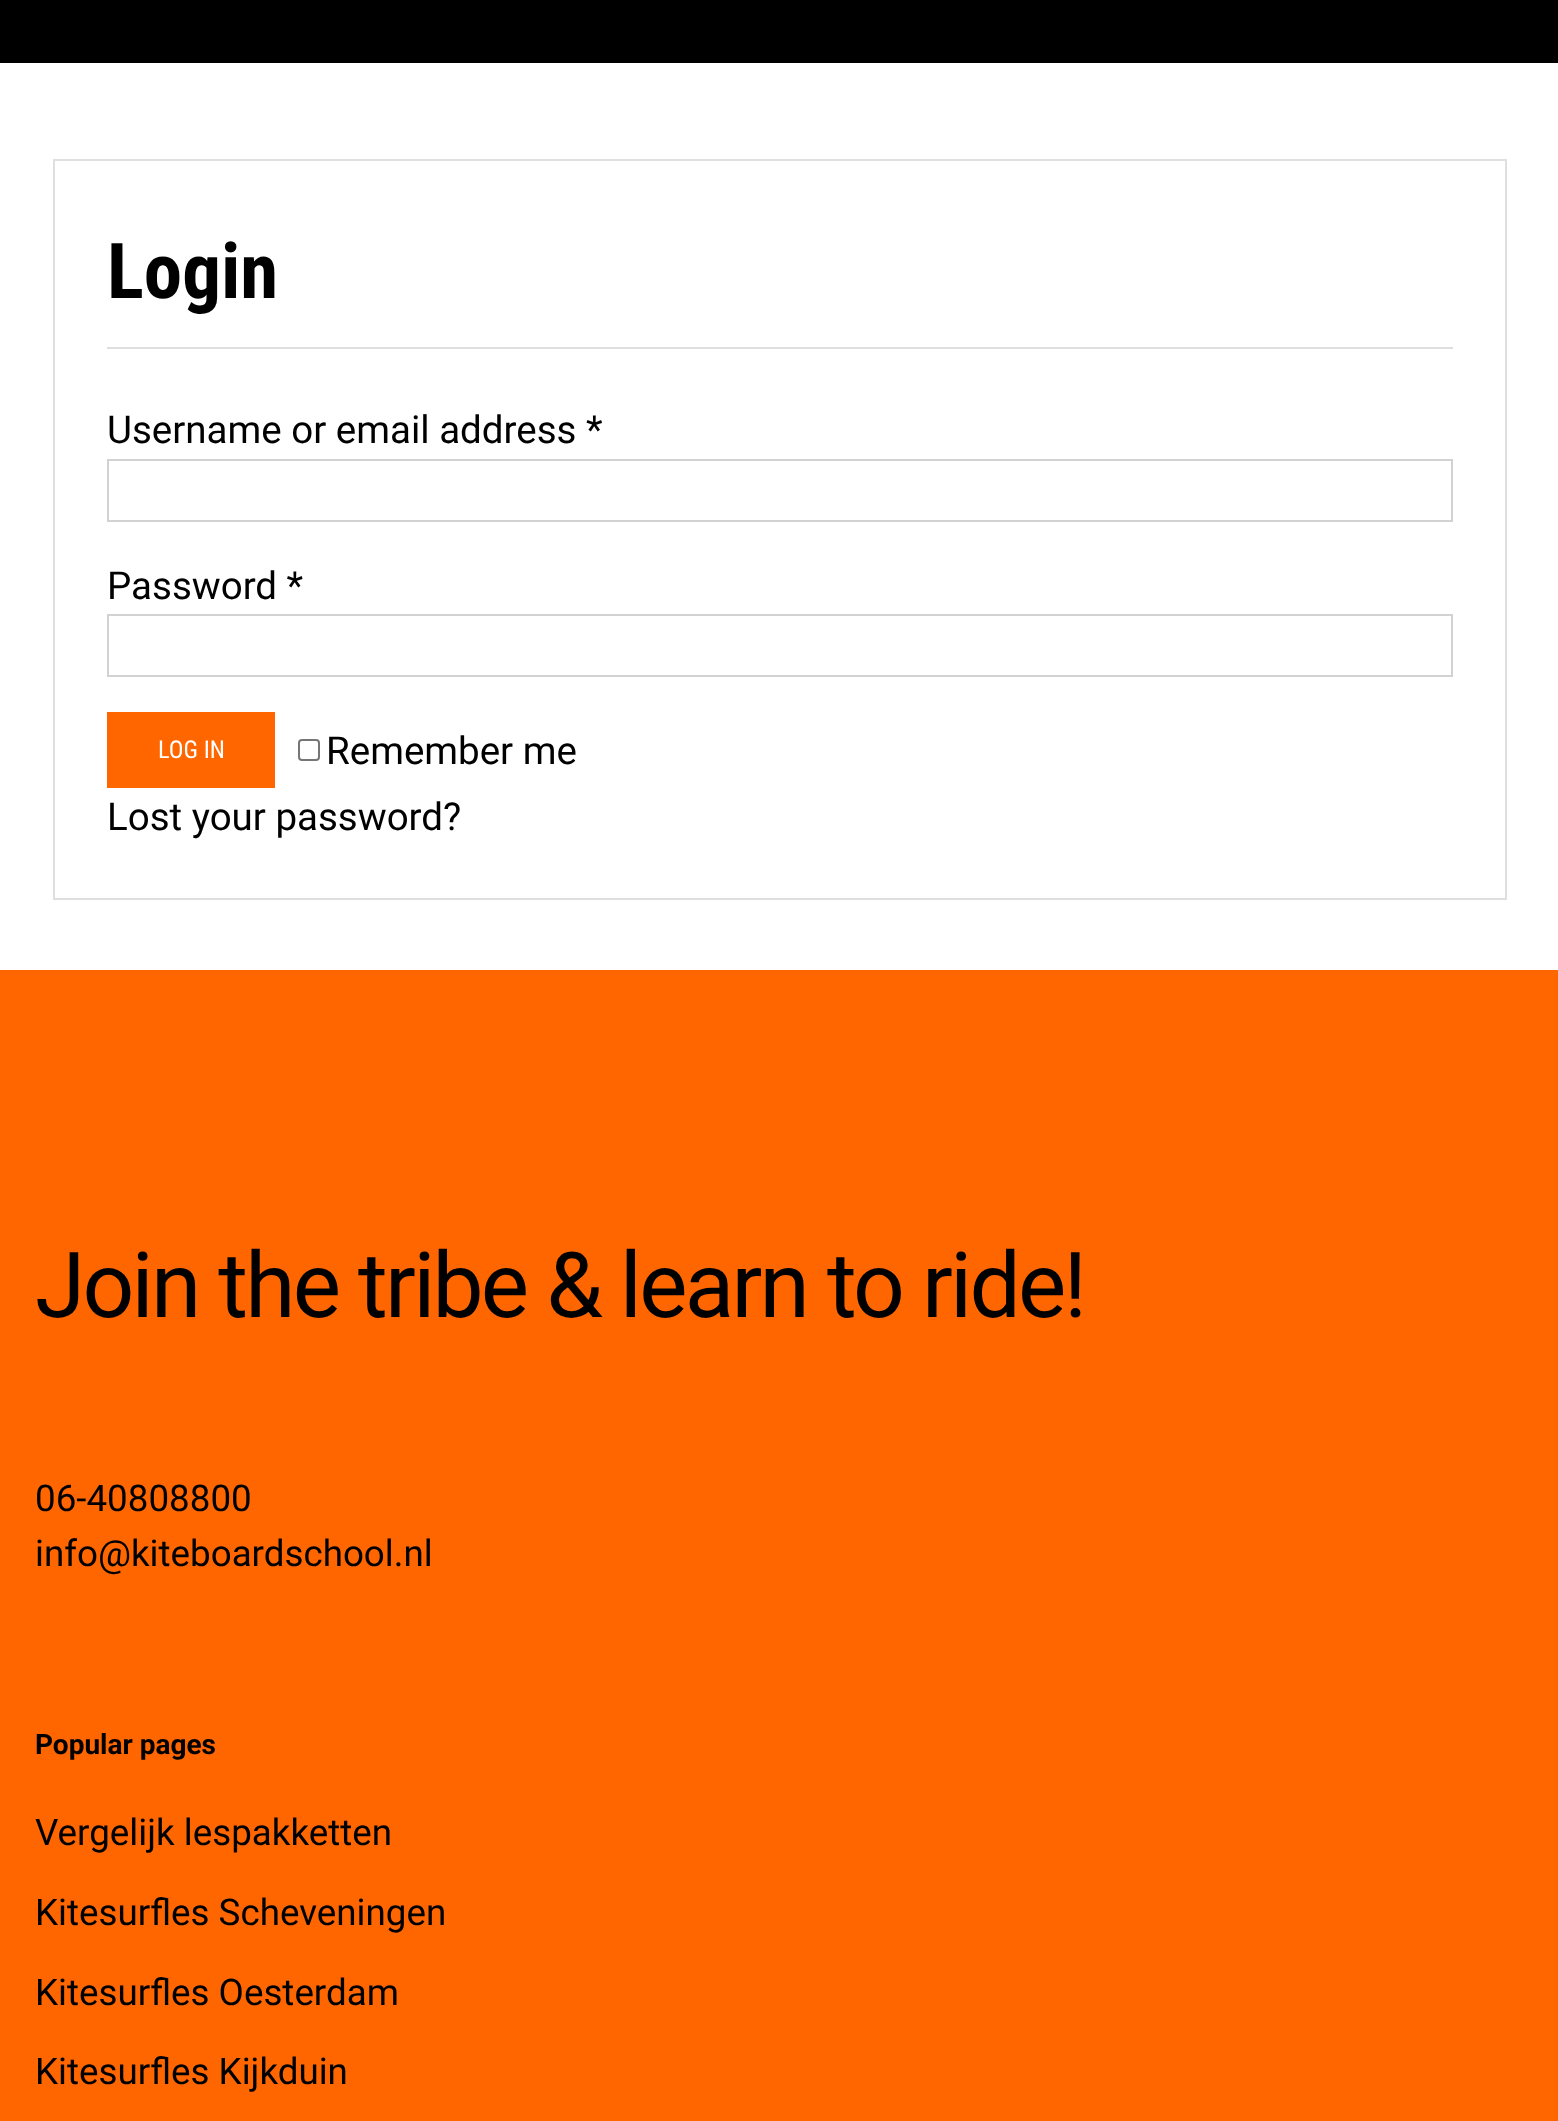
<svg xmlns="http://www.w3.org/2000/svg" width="1558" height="2121">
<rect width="100%" height="100%" fill="#fff"/>
<rect width="1558" height="63" fill="#000"/>
<rect x="54" y="160" width="1452" height="739" fill="none" stroke="#e0dede" stroke-width="2"/>
<rect x="107" y="347" width="1346" height="2" fill="#e0dede"/>
<text x="107" y="298" style="font-family:Roboto Condensed;font-size:77px;font-weight:bold;fill:#000">Login</text>
<text x="107" y="443" style="font-family:Roboto;font-size:38.5px;fill:#000">Username or email address *</text>
<rect x="108" y="460" width="1344" height="61" fill="none" stroke="#d2d2d2" stroke-width="2"/>
<text x="107" y="599" style="font-family:Roboto;font-size:38.5px;fill:#000">Password *</text>
<rect x="108" y="615" width="1344" height="61" fill="none" stroke="#d2d2d2" stroke-width="2"/>
<rect x="107" y="712" width="168" height="76" fill="#f60"/>
<text x="158" y="758" style="font-family:Roboto Condensed;font-size:24.5px;fill:#fff">LOG IN</text>
<rect x="299" y="740" width="20" height="20" rx="3" fill="none" stroke="#767676" stroke-width="2"/>
<text x="326" y="764" style="font-family:Roboto;font-size:38.5px;fill:#000">Remember me</text>
<text x="107" y="830" style="font-family:Roboto;font-size:38.5px;fill:#000">Lost your password?</text>
<rect y="970" width="1558" height="1151" fill="#f60"/>
<text x="35" y="1317" style="font-family:Roboto;font-size:91px;letter-spacing:-2.75px;fill:#000">Join the tribe &amp; learn to ride!</text>
<text x="35" y="1511" style="font-family:Roboto;font-size:36.75px;fill:#000">06-40808800</text>
<text x="35" y="1566" style="font-family:Roboto;font-size:36.75px;fill:#000">info@kiteboardschool.nl</text>
<text x="35" y="1754" style="font-family:Roboto;font-size:28px;font-weight:bold;fill:#000">Popular pages</text>
<text x="35" y="1845" style="font-family:Roboto;font-size:36.75px;fill:#000">Vergelijk lespakketten</text>
<text x="35" y="1925" style="font-family:Roboto;font-size:36.75px;fill:#000">Kitesurfles Scheveningen</text>
<text x="35" y="2005" style="font-family:Roboto;font-size:36.75px;fill:#000">Kitesurfles Oesterdam</text>
<text x="35" y="2084" style="font-family:Roboto;font-size:36.75px;fill:#000">Kitesurfles Kijkduin</text>
</svg>
